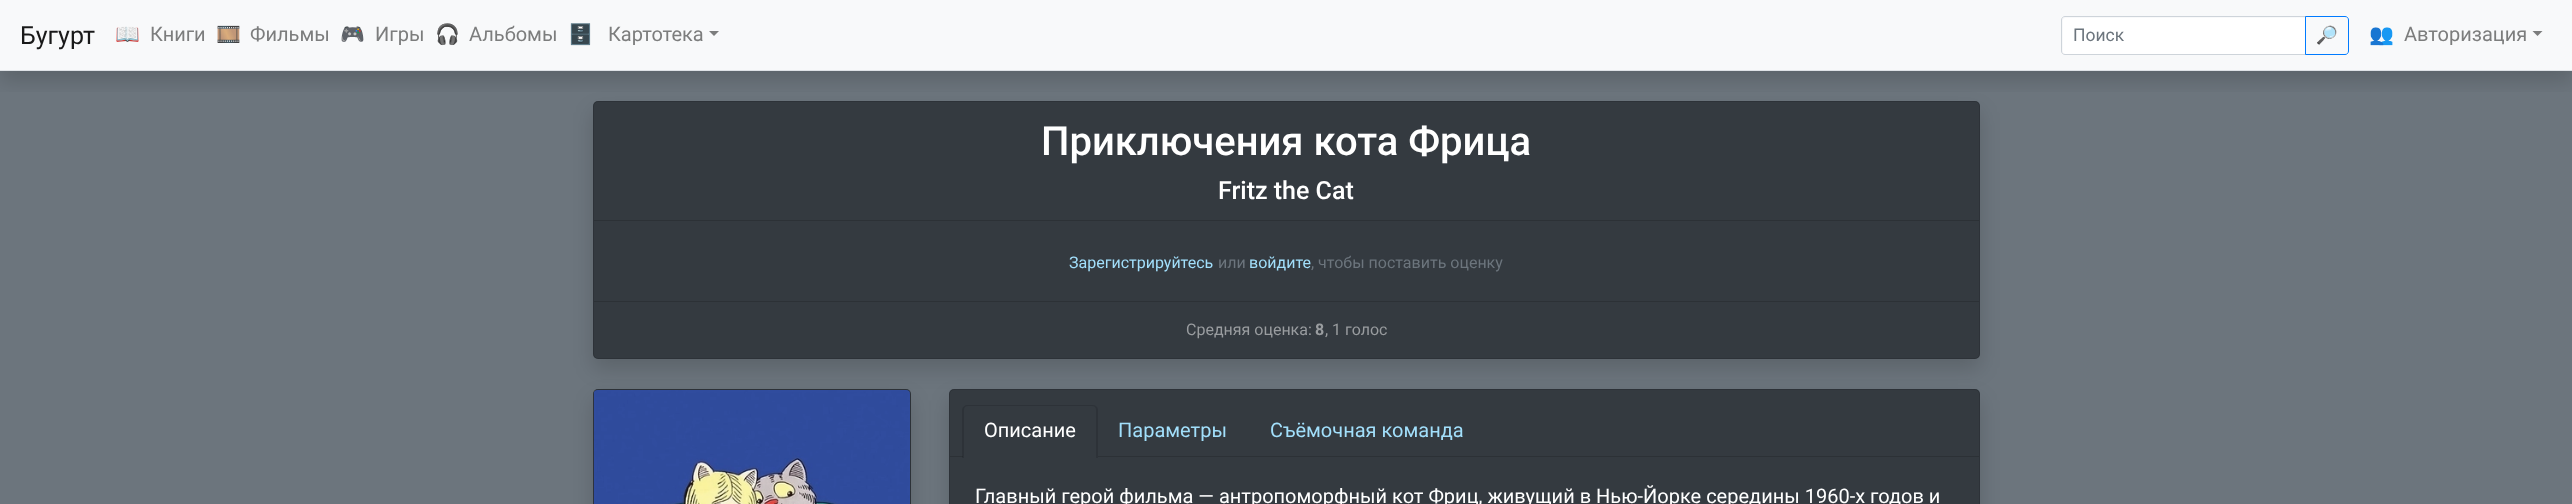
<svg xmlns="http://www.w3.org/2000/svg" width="2572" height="504">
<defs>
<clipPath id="clip1"><rect x="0" y="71" width="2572" height="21"/></clipPath>
</defs>
<rect width="100%" height="100%" fill="#f8f9fa"/>
<rect y="71" width="2572" height="433" fill="#6c757d"/>
<rect x="593" y="111" width="1387" height="258" rx="5" fill="#00000026" filter="blur(10px)"/>
<rect x="593" y="101" width="1387" height="258" rx="5" fill="#343a40"/>
<rect x="593.5" y="101.5" width="1386" height="257" rx="4.5" fill="none" stroke="#0000001f"/>
<g clip-path="url(#clip1)">
<rect y="10" width="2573" height="71" fill="#00000026" filter="blur(10px)"/>
</g>
<rect y="70" width="2572" height="1" fill="#dee2e6"/>
<text x="20" y="44" style="font-family:Roboto;font-size:25px;fill:#191919">Бугурт</text>
<text x="115" y="41" style="font-family:Noto Color Emoji;font-size:20px;fill:#212529">📖</text>
<text x="150" y="41" style="font-family:Roboto;font-size:20px;fill:#7c7d7d">Книги</text>
<text x="216" y="41" style="font-family:Noto Color Emoji;font-size:20px;fill:#212529">🎞</text>
<text x="250" y="41" style="font-family:Roboto;font-size:20px;fill:#7c7d7d">Фильмы</text>
<text x="340" y="41" style="font-family:Noto Color Emoji;font-size:20px;fill:#212529">🎮</text>
<text x="375" y="41" style="font-family:Roboto;font-size:20px;fill:#7c7d7d">Игры</text>
<text x="435" y="41" style="font-family:Noto Color Emoji;font-size:20px;fill:#212529">🎧</text>
<text x="469" y="41" style="font-family:Roboto;font-size:20px;fill:#7c7d7d">Альбомы</text>
<text x="568" y="41" style="font-family:Noto Color Emoji;font-size:20px;fill:#212529">🗄</text>
<text x="608" y="41" style="font-family:Roboto;font-size:20px;fill:#7c7d7d">Картотека</text>
<path d="M709 31h10l-5 5z" fill="#7c7d7d"/>
<path d="M2065.5 18h239.5v36h-239.5c-1.5 0-2.5-1-2.5-2.5v-31c0-1.5 1-2.5 2.5-2.5z" fill="#fff"/>
<path d="M2065 16.5h240.5v38h-240.5c-2 0-3.5-1.5-3.5-3.5v-31c0-2 1.5-3.5 3.5-3.5z" fill="none" stroke="#ced4da"/>
<text x="2073" y="41" style="font-family:Roboto;font-size:17.5px;fill:#6c757d">Поиск</text>
<path d="M2305.5 16.5h39.5c2 0 3.5 1.5 3.5 3.5v31c0 2-1.5 3.5-3.5 3.5h-39.5z" fill="none" stroke="#007bff"/>
<text x="2316" y="41" style="font-family:Noto Color Emoji;font-size:17.5px;fill:#007bff">🔎</text>
<text x="2369" y="41" style="font-family:Noto Color Emoji;font-size:20px;fill:#212529">👥</text>
<text x="2404" y="41" style="font-family:Roboto;font-size:20px;fill:#7c7d7d">Авторизация</text>
<path d="M2532.5 31h10l-5 5z" fill="#7c7d7d"/>
<rect x="594" y="220" width="1385" height="1" fill="#2c3136"/>
<text x="1041" y="155" style="font-family:Roboto;font-size:40px;font-weight:500;fill:#fff">Приключения кота Фрица</text>
<text x="1218" y="199" style="font-family:Roboto;font-size:25px;font-weight:500;fill:#fff">Fritz the Cat</text>
<text x="1069" y="268" style="font-family:Roboto;font-size:16px;fill:#a2dffb">Зарегистрируйтесь</text>
<text x="1218" y="268" style="font-family:Roboto;font-size:16px;fill:#6c757d">или</text>
<text x="1249" y="268" style="font-family:Roboto;font-size:16px;fill:#a2dffb">войдите</text>
<text x="1311" y="268" style="font-family:Roboto;font-size:16px;fill:#6c757d">, чтобы поставить оценку</text>
<rect x="594" y="301" width="1385" height="1" fill="#2c3136"/>
<text x="1186" y="335" style="font-family:Roboto;font-size:16px;fill:#999c9f">Средняя оценка:</text>
<text x="1315" y="335" style="font-family:Roboto;font-size:16px;font-weight:bold;fill:#999c9f">8</text>
<text x="1325" y="335" style="font-family:Roboto;font-size:16px;fill:#999c9f">, 1 голос</text>
<rect x="593" y="399" width="318" height="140" rx="5" fill="#00000026" filter="blur(10px)"/>
<rect x="593" y="389" width="318" height="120" rx="5" fill="#343a40"/>
<rect x="593.5" y="389.5" width="317" height="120" rx="4.5" fill="none" stroke="#0000001f"/>
<image x="593" y="390" width="317" height="114" href="media/1.png"/>
<rect x="949" y="399" width="1031" height="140" rx="5" fill="#00000026" filter="blur(10px)"/>
<rect x="949" y="389" width="1031" height="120" rx="5" fill="#343a40"/>
<rect x="949.5" y="389.5" width="1030" height="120" rx="4.5" fill="none" stroke="#0000001f"/>
<rect x="950" y="456" width="1029" height="1" fill="#2c3136"/>
<path d="M968 405h125c3 0 5 2 5 5v48h-135v-48c0-3 2-5 5-5z" fill="#343a40"/>
<path d="M968 405h124c3 0 6 2 6 5v48h-136v-48c0-3 3-5 6-5zm0 1h124c3 0 4 2 4 4v48h-132v-48c0-2 1-4 4-4z" fill="#0000001f" fill-rule="evenodd"/>
<text x="984" y="437" style="font-family:Roboto;font-size:20px;fill:#fff">Описание</text>
<text x="1118" y="437" style="font-family:Roboto;font-size:20px;fill:#a2dffb">Параметры</text>
<text x="1270" y="437" style="font-family:Roboto;font-size:20px;fill:#a2dffb">Съёмочная команда</text>
<text x="975" y="503" style="font-family:Roboto;font-size:20px;fill:#fff">Главный герой фильма — антропоморфный кот Фриц, живущий в Нью-Йорке середины 1960-х годов и</text>
</svg>
